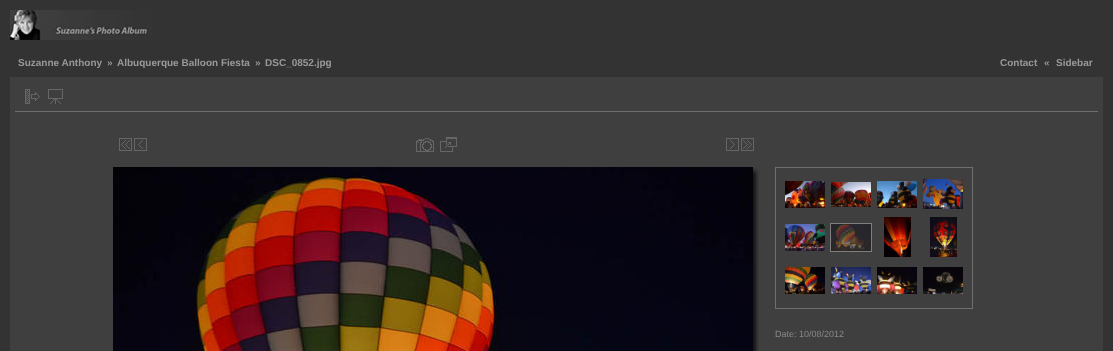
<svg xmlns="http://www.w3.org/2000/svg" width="1113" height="351">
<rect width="100%" height="100%" fill="#333"/>
<image x="10" y="10" width="142" height="30" href="media/1.png"/>
<text x="18" y="66" style="font-family:Liberation Sans;font-size:10px;font-weight:bold;fill:#999">Suzanne Anthony</text>
<text x="107" y="66" style="font-family:Liberation Sans;font-size:10px;font-weight:bold;fill:#999">»</text>
<text x="117" y="66" style="font-family:Liberation Sans;font-size:10px;font-weight:bold;fill:#999">Albuquerque Balloon Fiesta</text>
<text x="255" y="66" style="font-family:Liberation Sans;font-size:10px;font-weight:bold;fill:#999">»</text>
<text x="265" y="66" style="font-family:Liberation Sans;font-size:10px;font-weight:bold;fill:#999">DSC_0852.jpg</text>
<text x="1000" y="66" style="font-family:Liberation Sans;font-size:10px;font-weight:bold;fill:#999">Contact</text>
<text x="1044" y="66" style="font-family:Liberation Sans;font-size:10px;font-weight:bold;fill:#999">«</text>
<text x="1056" y="66" style="font-family:Liberation Sans;font-size:10px;font-weight:bold;fill:#999">Sidebar</text>
<rect x="10" y="77" width="1093" height="274" fill="#3f3f3f"/>
<rect x="15" y="111" width="1083" height="1" fill="#6f6f6f"/>
<image x="25" y="89" width="15" height="15" href="media/2.png"/>
<image x="48" y="89" width="15" height="15" href="media/3.png"/>
<image x="119" y="138" width="13" height="13" href="media/4.png"/>
<image x="134" y="138" width="13" height="13" href="media/5.png"/>
<image x="416" y="138" width="18" height="14" href="media/6.png"/>
<image x="440" y="137" width="17" height="15" href="media/7.png"/>
<image x="726" y="138" width="13" height="13" href="media/8.png"/>
<image x="741" y="138" width="13" height="13" href="media/9.png"/>
<image x="113" y="167" width="640" height="184" href="media/10.png"/>
<image x="753" y="168" width="6" height="9" href="media/11.png"/>
<image x="753" y="177" width="6" height="174" href="media/12.png"/>
<rect x="775.5" y="167.5" width="197" height="141" fill="none" stroke="#6f6f6f"/>
<image x="785" y="181" width="40" height="27" href="media/13.png"/>
<image x="831" y="182" width="40" height="25" href="media/14.png"/>
<image x="877" y="181" width="40" height="27" href="media/15.png"/>
<image x="923" y="179" width="40" height="30" href="media/16.png"/>
<image x="785" y="224" width="40" height="27" href="media/17.png"/>
<rect x="830.5" y="223.5" width="41" height="28" fill="none" stroke="#7e7e7e"/>
<image x="831" y="224" width="40" height="27" href="media/18.png"/>
<image x="884" y="217" width="27" height="40" href="media/19.png"/>
<image x="930" y="217" width="27" height="40" href="media/20.png"/>
<image x="785" y="267" width="40" height="27" href="media/21.png"/>
<image x="831" y="267" width="40" height="27" href="media/22.png"/>
<image x="877" y="267" width="40" height="27" href="media/23.png"/>
<image x="923" y="267" width="40" height="27" href="media/24.png"/>
<text x="775" y="337" style="font-family:Liberation Sans;font-size:9px;fill:#888">Date: 10/08/2012</text>
</svg>
